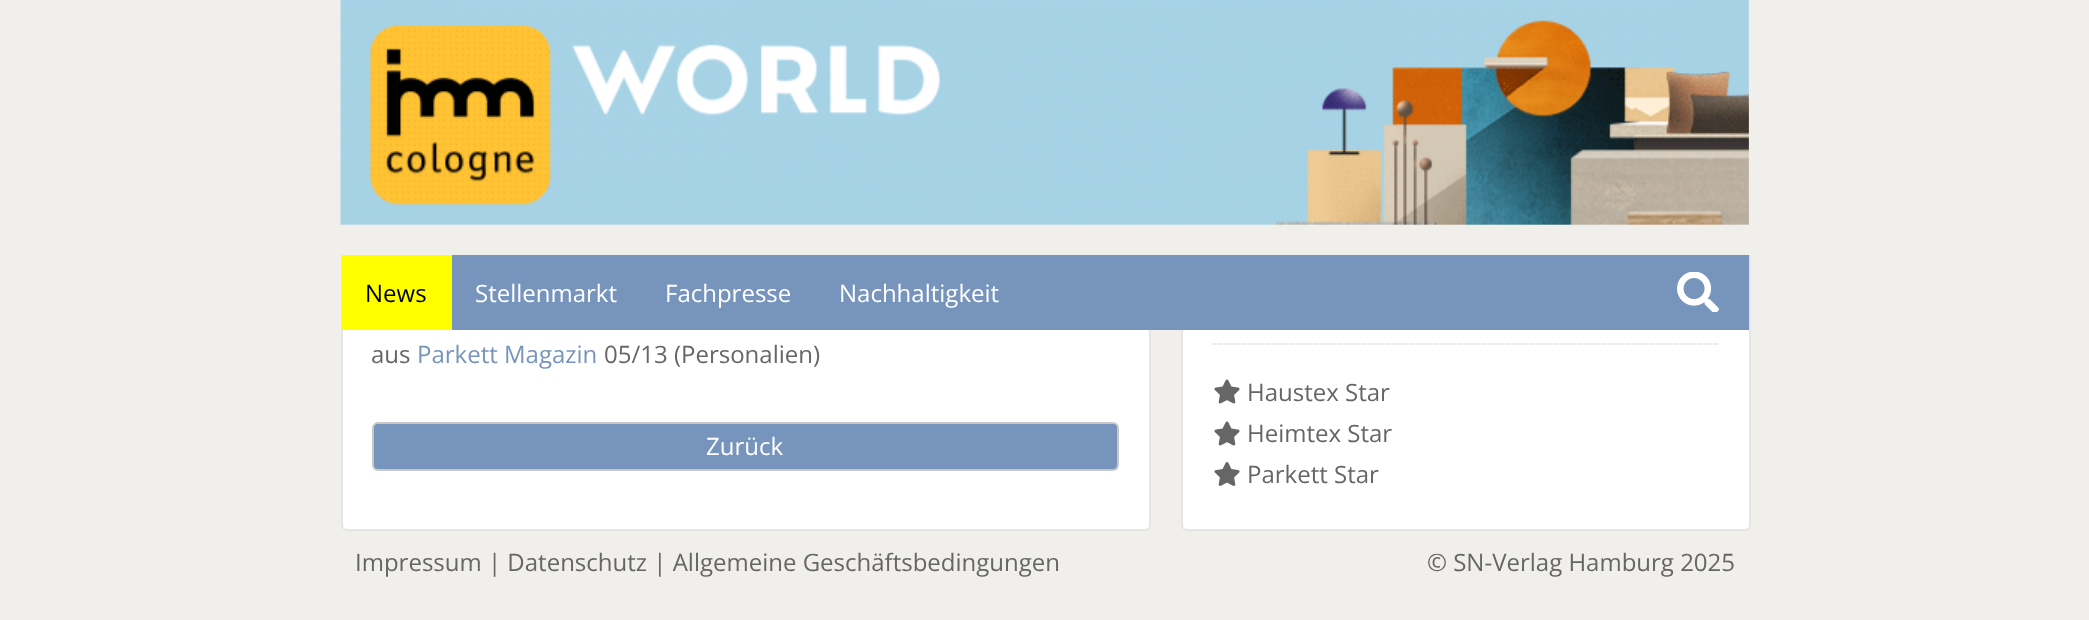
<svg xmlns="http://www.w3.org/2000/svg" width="2089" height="620">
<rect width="100%" height="100%" fill="#f1efec"/>
<rect x="342" y="-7" width="808" height="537" rx="5" fill="#fff" stroke="#e5e5e5" stroke-width="2"/>
<rect x="1182" y="-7" width="568" height="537" rx="5" fill="#fff" stroke="#e5e5e5" stroke-width="2"/>
<rect x="341" width="1410" height="255" fill="#f1efec"/>
<image x="340" y="0" width="1409" height="225" href="media/1.png"/>
<rect x="452" y="255" width="1297" height="75" fill="#7694bc"/>
<rect x="342" y="255" width="110" height="75" fill="#ff0"/>
<text x="365" y="302" style="font-family:Open Sans;font-size:24px;fill:#000">News</text>
<text x="475" y="302" style="font-family:Open Sans;font-size:24px;fill:#fff">Stellenmarkt</text>
<text x="665" y="302" style="font-family:Open Sans;font-size:24px;fill:#fff">Fachpresse</text>
<text x="839" y="302" style="font-family:Open Sans;font-size:24px;fill:#fff">Nachhaltigkeit</text>
<image x="1677" y="272" width="42" height="40" href="media/2.png"/>
<text x="371" y="363" style="font-family:Open Sans;font-size:24px;fill:#666">aus</text>
<text x="417" y="363" style="font-family:Open Sans;font-size:24px;fill:#7694bc">Parkett Magazin</text>
<text x="604" y="363" style="font-family:Open Sans;font-size:24px;fill:#666">05/13 (Personalien)</text>
<rect x="373" y="423" width="745" height="47" rx="5" fill="#7694bc" stroke="#c8c8c8" stroke-width="2"/>
<text x="706" y="455" style="font-family:Open Sans;font-size:24px;fill:#fff">Zurück</text>
<path d="M1212 344h507" fill="none" stroke="#d3d3d3" stroke-width="1.5" stroke-dasharray="1.5 1.5"/>
<image x="1214" y="379" width="26" height="25" href="media/3.png"/>
<text x="1247" y="401" style="font-family:Open Sans;font-size:24px;fill:#666">Haustex Star</text>
<image x="1214" y="421" width="26" height="25" href="media/3.png"/>
<text x="1247" y="442" style="font-family:Open Sans;font-size:24px;fill:#666">Heimtex Star</text>
<image x="1214" y="462" width="26" height="24" href="media/4.png"/>
<text x="1247" y="483" style="font-family:Open Sans;font-size:24px;fill:#666">Parkett Star</text>
<text x="355" y="571" style="font-family:Open Sans;font-size:24px;fill:#666">Impressum | Datenschutz | Allgemeine Geschäftsbedingungen</text>
<text x="1427" y="571" style="font-family:Open Sans;font-size:24px;fill:#666">© SN-Verlag Hamburg 2025</text>
</svg>
